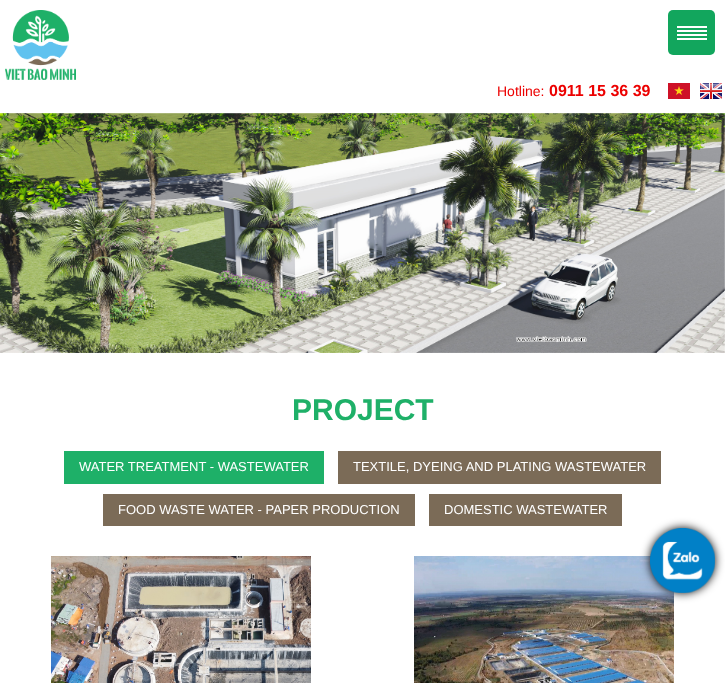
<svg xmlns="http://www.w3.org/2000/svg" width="725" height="683">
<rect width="100%" height="100%" fill="#fff"/>
<image x="5" y="10" width="71" height="70" href="media/1.png"/>
<rect x="668" y="10" width="47" height="45" rx="5" fill="#12a65d"/>
<rect x="677" y="26" width="30" height="2" fill="#fff"/>
<rect x="677" y="30" width="30" height="2" fill="#fff"/>
<rect x="677" y="34" width="30" height="2" fill="#fff"/>
<rect x="677" y="38" width="30" height="2" fill="#fff"/>
<text x="497" y="96" style="font-family:Liberation Sans;font-size:14px;fill:#ec0000">Hotline:</text>
<text x="549" y="96" style="font-family:Liberation Sans;font-size:16px;font-weight:bold;fill:#ec0000">0911 15 36 39</text>
<image x="668" y="83" width="22" height="16" href="media/2.png"/>
<image x="700" y="83" width="22" height="16" href="media/3.png"/>
<image x="0" y="113" width="725" height="240" href="media/4.png"/>
<text x="292" y="420" style="font-family:Liberation Sans;font-size:30px;font-weight:bold;fill:#1eb068">PROJECT</text>
<rect x="64" y="451" width="260" height="33" fill="#1eb068"/>
<text x="79" y="471" style="font-family:Liberation Sans;font-size:13px;fill:#fff">WATER TREATMENT - WASTEWATER</text>
<rect x="338" y="451" width="323" height="33" fill="#7b6b57"/>
<text x="353" y="471" style="font-family:Liberation Sans;font-size:13px;fill:#fff">TEXTILE, DYEING AND PLATING WASTEWATER</text>
<rect x="103" y="494" width="312" height="32" fill="#7b6b57"/>
<text x="118" y="514" style="font-family:Liberation Sans;font-size:13px;fill:#fff">FOOD WASTE WATER - PAPER PRODUCTION</text>
<rect x="429" y="494" width="193" height="32" fill="#7b6b57"/>
<text x="444" y="514" style="font-family:Liberation Sans;font-size:13px;fill:#fff">DOMESTIC WASTEWATER</text>
<image x="51" y="556" width="260" height="127" href="media/5.png"/>
<image x="414" y="556" width="260" height="127" href="media/6.png"/>
<rect x="650" y="528" width="65" height="65" rx="32.5" fill="#000" filter="blur(5px)"/>
<image x="650" y="528" width="65" height="65" href="media/7.png"/>
</svg>
